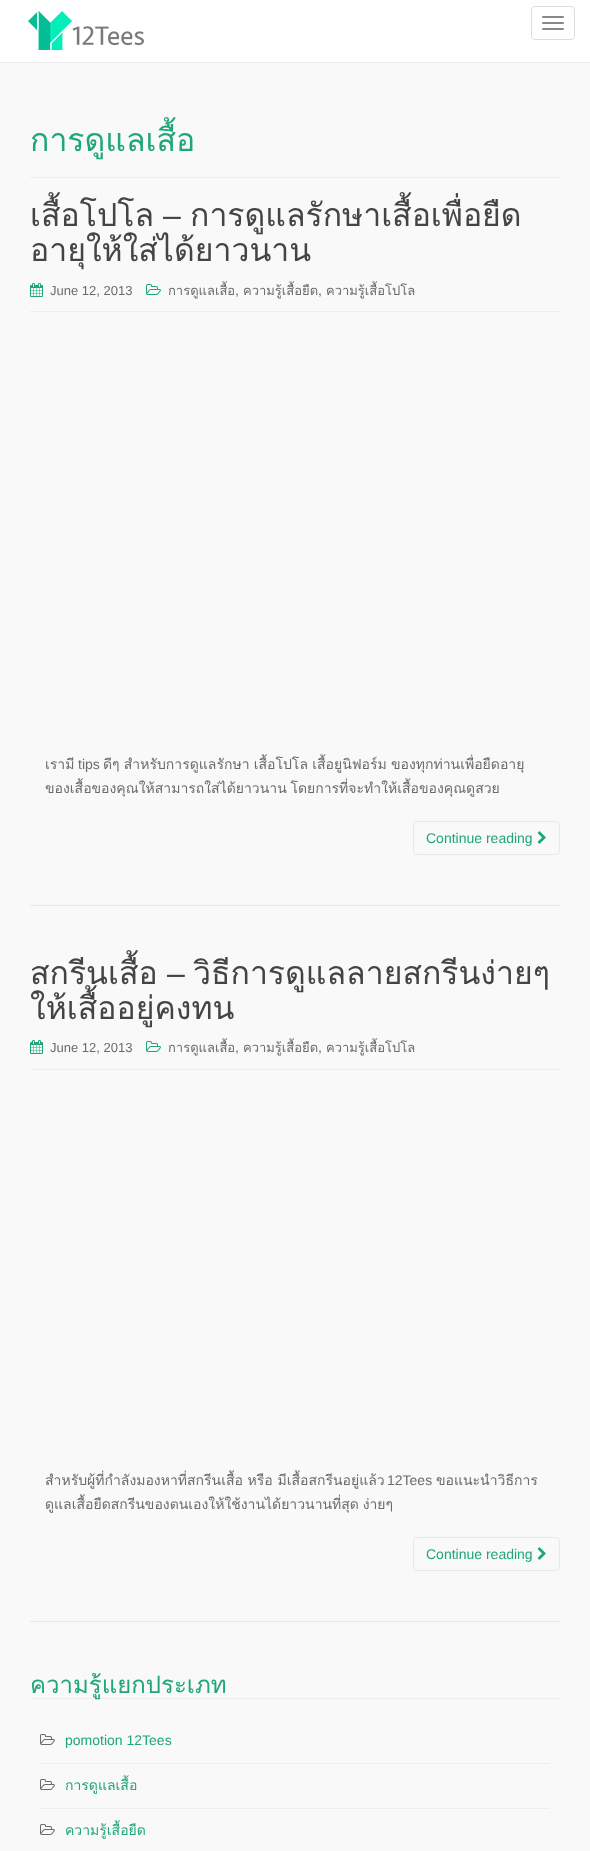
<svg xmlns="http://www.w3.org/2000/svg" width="590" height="1851">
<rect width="100%" height="100%" fill="#f9f9f9"/>
<rect width="590" height="62" fill="#fff"/>
<rect y="62" width="590" height="1" fill="#eee"/>
<image x="28" y="11" width="116" height="39" href="media/1.png"/>
<rect x="531.5" y="6.5" width="43" height="33" rx="3.5" fill="none" stroke="#ddd"/>
<rect x="542" y="16" width="22" height="2" rx="1" fill="#888"/>
<rect x="542" y="22" width="22" height="2" rx="1" fill="#888"/>
<rect x="542" y="28" width="22" height="2" rx="1" fill="#888"/>
<rect x="30" y="177" width="530" height="1" fill="#eee"/>
<text x="30" y="151" style="font-family:Loma;font-size:32px;fill:#1fa67a">การดูแลเสื้อ</text>
<rect x="30" y="311" width="530" height="1" fill="#eee"/>
<text x="30" y="226" style="font-family:Loma;font-size:32px;fill:#444">เสื้อโปโล</text>
<text x="163" y="226" style="font-family:Liberation Sans;font-size:32px;fill:#444">–</text>
<text x="190" y="226" style="font-family:Loma;font-size:32px;fill:#444">การดูแลรักษาเสื้อเพื่อยืด</text>
<text x="30" y="261" style="font-family:Loma;font-size:32px;fill:#444">อายุให้ใส่ได้ยาวนาน</text>
<image x="30" y="283" width="13" height="14" href="media/2.png"/>
<text x="50" y="295" style="font-family:Liberation Sans;font-size:13px;fill:#6b6b6b">June 12, 2013</text>
<image x="146" y="284" width="15" height="11" href="media/3.png"/>
<text x="168" y="295" style="font-family:Loma;font-size:13px;fill:#6b6b6b">การดูแลเสื้อ</text>
<text x="235" y="295" style="font-family:Liberation Sans;font-size:14px;fill:#6b6b6b">,</text>
<text x="243" y="295" style="font-family:Loma;font-size:13px;fill:#6b6b6b">ความรู้เสื้อยืด</text>
<text x="318" y="295" style="font-family:Liberation Sans;font-size:14px;fill:#6b6b6b">,</text>
<text x="326" y="295" style="font-family:Loma;font-size:13px;fill:#6b6b6b">ความรู้เสื้อโปโล</text>
<text x="45" y="769" style="font-family:Loma;font-size:14px;fill:#6b6b6b">เรามี</text>
<text x="78" y="769" style="font-family:Liberation Sans;font-size:14px;fill:#6b6b6b">tips</text>
<text x="103" y="769" word-spacing="-0.5" style="font-family:Loma;font-size:14px;fill:#6b6b6b">ดีๆ สำหรับการดูแลรักษา เสื้อโปโล เสื้อยูนิฟอร์ม ของทุกท่านเพื่อยืดอายุ</text>
<text x="45" y="793" word-spacing="-1" style="font-family:Loma;font-size:14px;fill:#6b6b6b">ของเสื้อของคุณให้สามารถใส่ได้ยาวนาน โดยการที่จะทำให้เสื้อของคุณดูสวย</text>
<rect x="413.5" y="821.5" width="146" height="33" rx="3.5" fill="none" stroke="#e8e8e8"/>
<text x="426" y="843" style="font-family:Liberation Sans;font-size:14px;fill:#1fa67a">Continue reading</text>
<image x="537" y="831" width="9" height="13" href="media/4.png"/>
<rect x="30" y="905" width="530" height="1" fill="#e8e8e8"/>
<rect x="30" y="1069" width="530" height="1" fill="#eee"/>
<text x="30" y="984" style="font-family:Loma;font-size:32px;fill:#444">สกรีนเสื้อ</text>
<text x="167" y="984" style="font-family:Liberation Sans;font-size:32px;fill:#444">–</text>
<text x="193" y="984" style="font-family:Loma;font-size:32px;fill:#444">วิธีการดูแลลายสกรีนง่ายๆ</text>
<text x="30" y="1019" style="font-family:Loma;font-size:32px;fill:#444">ให้เสื้ออยู่คงทน</text>
<image x="30" y="1040" width="13" height="14" href="media/2.png"/>
<text x="50" y="1052" style="font-family:Liberation Sans;font-size:13px;fill:#6b6b6b">June 12, 2013</text>
<image x="146" y="1041" width="15" height="11" href="media/3.png"/>
<text x="168" y="1052" style="font-family:Loma;font-size:13px;fill:#6b6b6b">การดูแลเสื้อ</text>
<text x="235" y="1052" style="font-family:Liberation Sans;font-size:14px;fill:#6b6b6b">,</text>
<text x="243" y="1052" style="font-family:Loma;font-size:13px;fill:#6b6b6b">ความรู้เสื้อยืด</text>
<text x="318" y="1052" style="font-family:Liberation Sans;font-size:14px;fill:#6b6b6b">,</text>
<text x="326" y="1052" style="font-family:Loma;font-size:13px;fill:#6b6b6b">ความรู้เสื้อโปโล</text>
<text x="45" y="1485" style="font-family:Loma;font-size:14px;fill:#6b6b6b">สำหรับผู้ที่กำลังมองหาที่สกรีนเสื้อ หรือ มีเสื้อสกรีนอยู่แล้ว</text>
<text x="387" y="1485" style="font-family:Liberation Sans;font-size:14px;fill:#6b6b6b">12Tees</text>
<text x="436" y="1485" style="font-family:Loma;font-size:14px;fill:#6b6b6b">ขอแนะนำวิธีการ</text>
<text x="45" y="1509" word-spacing="-1" style="font-family:Loma;font-size:14px;fill:#6b6b6b">ดูแลเสื้อยืดสกรีนของตนเองให้ใช้งานได้ยาวนานที่สุด ง่ายๆ</text>
<rect x="413.5" y="1537.5" width="146" height="33" rx="3.5" fill="none" stroke="#e8e8e8"/>
<text x="426" y="1559" style="font-family:Liberation Sans;font-size:14px;fill:#1fa67a">Continue reading</text>
<image x="537" y="1547" width="9" height="13" href="media/4.png"/>
<rect x="30" y="1621" width="530" height="1" fill="#e8e8e8"/>
<rect x="30" y="1698" width="530" height="1" fill="#eee"/>
<text x="30" y="1693" style="font-family:Loma;font-size:24px;fill:#1fa67a">ความรู้แยกประเภท</text>
<rect x="40" y="1763" width="510" height="1" fill="#eee"/>
<image x="40" y="1734" width="15" height="11" href="media/5.png"/>
<text x="65" y="1745" style="font-family:Liberation Sans;font-size:14px;fill:#1fa67a">pomotion 12Tees</text>
<rect x="40" y="1808" width="510" height="1" fill="#eee"/>
<image x="40" y="1779" width="15" height="11" href="media/5.png"/>
<text x="65" y="1790" style="font-family:Loma;font-size:14px;fill:#1fa67a">การดูแลเสื้อ</text>
<image x="40" y="1824" width="15" height="11" href="media/5.png"/>
<text x="65" y="1835" style="font-family:Loma;font-size:14px;fill:#1fa67a">ความรู้เสื้อยืด</text>
</svg>
